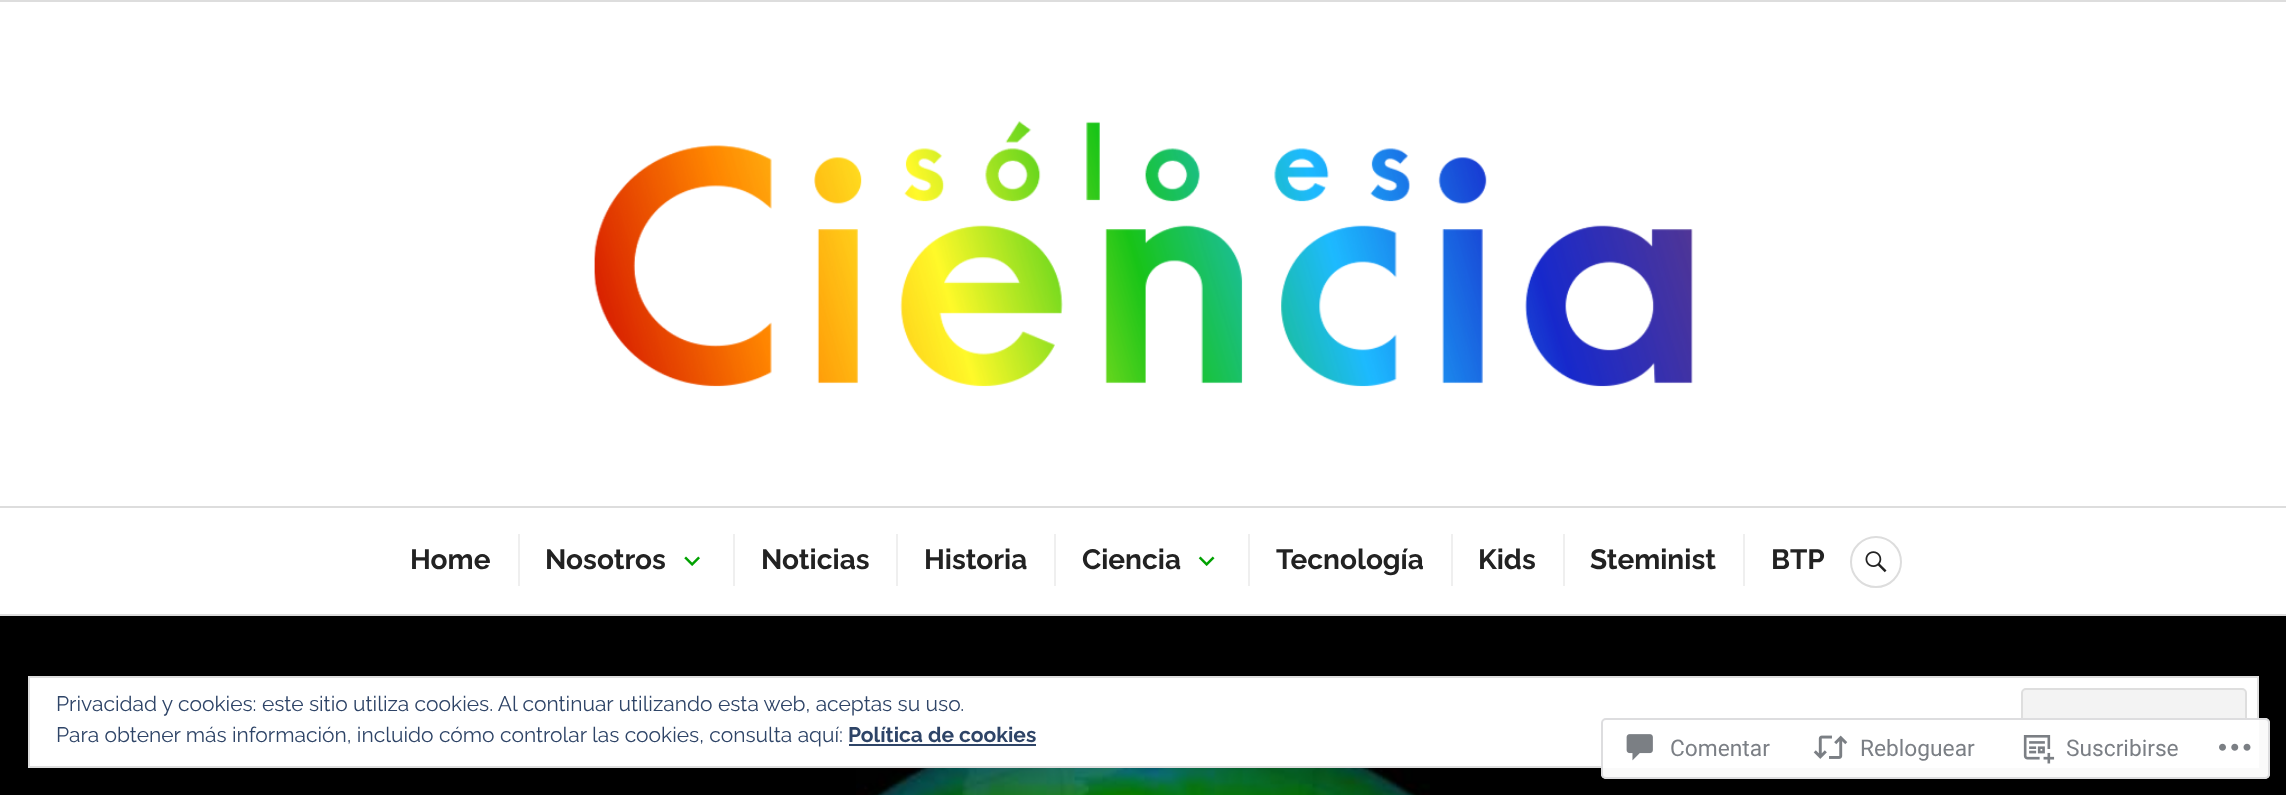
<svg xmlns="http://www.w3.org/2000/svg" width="2286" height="795">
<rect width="100%" height="100%" fill="#fff"/>
<rect y="614" width="2286" height="2" fill="#ddd"/>
<rect width="2286" height="2" fill="#ddd"/>
<image x="594" y="121" width="1099" height="266" href="media/1.png"/>
<rect y="506" width="2286" height="2" fill="#ddd"/>
<text x="410" y="569" style="font-family:Raleway;font-size:28px;font-weight:bold;fill:#222">Home</text>
<rect x="518" y="534" width="2" height="52" fill="#efefef"/>
<text x="545" y="569" style="font-family:Raleway;font-size:28px;font-weight:bold;fill:#222">Nosotros</text>
<image x="684" y="556" width="16" height="10" href="media/2.png"/>
<rect x="733" y="534" width="2" height="52" fill="#efefef"/>
<text x="761" y="569" style="font-family:Raleway;font-size:28px;font-weight:bold;fill:#222">Noticias</text>
<rect x="896" y="534" width="2" height="52" fill="#efefef"/>
<text x="924" y="569" style="font-family:Raleway;font-size:28px;font-weight:bold;fill:#222">Historia</text>
<rect x="1054" y="534" width="2" height="52" fill="#efefef"/>
<text x="1082" y="569" style="font-family:Raleway;font-size:28px;font-weight:bold;fill:#222">Ciencia</text>
<image x="1198" y="556" width="17" height="10" href="media/3.png"/>
<rect x="1248" y="534" width="2" height="52" fill="#efefef"/>
<text x="1276" y="569" style="font-family:Raleway;font-size:28px;font-weight:bold;fill:#222">Tecnología</text>
<rect x="1451" y="534" width="2" height="52" fill="#efefef"/>
<text x="1478" y="569" style="font-family:Raleway;font-size:28px;font-weight:bold;fill:#222">Kids</text>
<rect x="1563" y="534" width="2" height="52" fill="#efefef"/>
<text x="1590" y="569" style="font-family:Raleway;font-size:28px;font-weight:bold;fill:#222">Steminist</text>
<rect x="1743" y="534" width="2" height="52" fill="#efefef"/>
<text x="1771" y="569" style="font-family:Raleway;font-size:28px;font-weight:bold;fill:#222">BTP</text>
<circle cx="1876" cy="562" r="25" fill="none" stroke="#ddd" stroke-width="2"/>
<image x="1865" y="551" width="22" height="22" href="media/4.png"/>
<rect y="616" width="2286" height="179" fill="#000"/>
<image x="856" y="768" width="574" height="27" href="media/5.png"/>
<rect x="29" y="677" width="2229" height="90" fill="#fff" stroke="#dedede" stroke-width="2"/>
<text x="56" y="711" style="font-family:Raleway;font-size:21px;fill:#2e4467">Privacidad y cookies: este sitio utiliza cookies. Al continuar utilizando esta web, aceptas su uso.</text>
<rect x="2022" y="689" width="224" height="66" rx="4" fill="#f3f3f3" stroke="#dedede" stroke-width="2"/>
<text x="56" y="742" style="font-family:Raleway;font-size:21px;fill:#2e4467">Para obtener más información, incluido cómo controlar las cookies, consulta aquí:</text>
<text x="848" y="742" style="font-family:Raleway;font-size:21px;font-weight:bold;fill:#2e4467">Política de cookies</text>
<rect x="849" y="744" width="187" height="2" fill="#2e4467"/>
<rect x="1601" y="718" width="669" height="61" rx="5" fill="#fffffffa"/>
<rect x="1602" y="719" width="667" height="59" rx="4" fill="none" stroke="#dcdcdefa" stroke-width="2"/>
<image x="1626" y="734" width="27" height="27" href="media/6.png"/>
<text x="1670" y="756" style="font-family:Roboto;font-size:22.75px;fill:#7b7f85">Comentar</text>
<image x="1813" y="735" width="35" height="24" href="media/7.png"/>
<text x="1860" y="756" style="font-family:Roboto;font-size:22.75px;fill:#7b7f85">Rebloguear</text>
<image x="2023" y="735" width="32" height="29" href="media/8.png"/>
<text x="2066" y="756" style="font-family:Roboto;font-size:22.75px;fill:#7b7f85">Suscribirse</text>
<image x="2219" y="743" width="32" height="8" href="media/9.png"/>
</svg>
